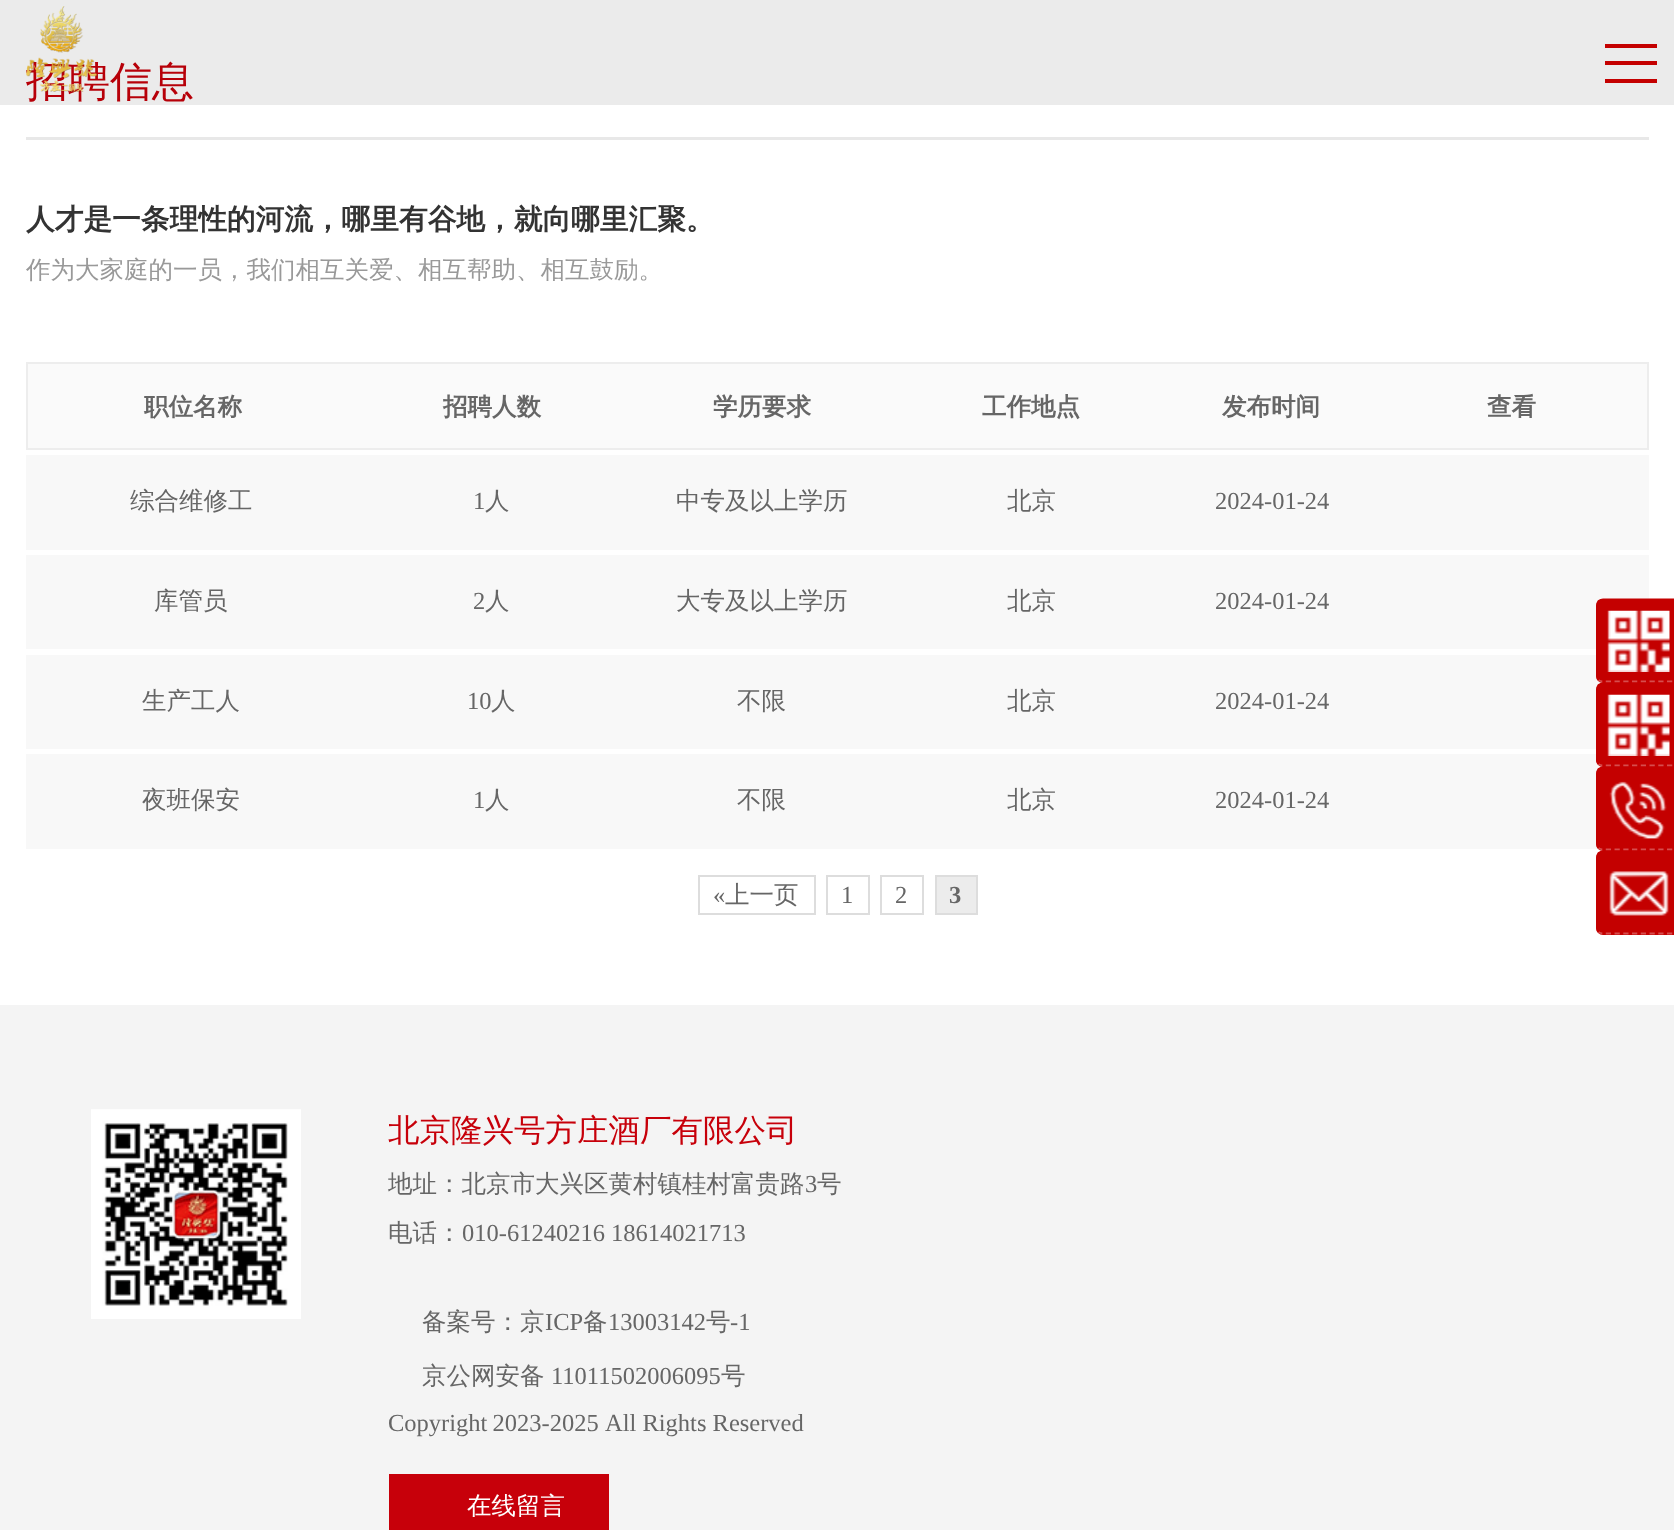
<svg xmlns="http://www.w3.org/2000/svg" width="1674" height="1530">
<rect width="100%" height="100%" fill="#fff"/>
<rect width="1674" height="105" fill="#ebebeb"/>
<text x="26" y="96" style="font-family:WenQuanYi Zen Hei;font-size:42px;font-weight:500;fill:#b70009">招聘信息</text>
<image x="26" y="6" width="72" height="86" href="media/1.png"/>
<rect x="1605" y="44" width="52" height="4" fill="#c40000"/>
<rect x="1605" y="61" width="52" height="4" fill="#c40000"/>
<rect x="1605" y="79" width="52" height="4" fill="#c40000"/>
<rect x="26" y="137" width="1623" height="3" fill="#e8e8e8"/>
<text x="26" y="229" style="font-family:WenQuanYi Zen Hei;font-size:28.7px;font-weight:bold;fill:#333">人才是一条理性的河流，哪里有谷地，就向哪里汇聚。</text>
<text x="26" y="278" style="font-family:WenQuanYi Zen Hei;font-size:24.5px;font-weight:500;fill:#999">作为大家庭的一员，我们相互关爱、相互帮助、相互鼓励。</text>
<rect x="27" y="363" width="1621" height="86" fill="#fafafa" stroke="#ededed" stroke-width="2"/>
<text x="144" y="415" style="font-family:WenQuanYi Zen Hei;font-size:24.5px;font-weight:bold;fill:#666">职位名称</text>
<text x="443" y="415" style="font-family:WenQuanYi Zen Hei;font-size:24.5px;font-weight:bold;fill:#666">招聘人数</text>
<text x="713" y="415" style="font-family:WenQuanYi Zen Hei;font-size:24.5px;font-weight:bold;fill:#666">学历要求</text>
<text x="982" y="415" style="font-family:WenQuanYi Zen Hei;font-size:24.5px;font-weight:bold;fill:#666">工作地点</text>
<text x="1222" y="415" style="font-family:WenQuanYi Zen Hei;font-size:24.5px;font-weight:bold;fill:#666">发布时间</text>
<text x="1487" y="415" style="font-family:WenQuanYi Zen Hei;font-size:24.5px;font-weight:bold;fill:#666">查看</text>
<rect x="26" y="455" width="1623" height="95" fill="#f8f8f8"/>
<text x="130" y="509" style="font-family:WenQuanYi Zen Hei;font-size:24.5px;font-weight:500;fill:#666">综合维修工</text>
<text x="473" y="509" style="font-family:Liberation Serif;font-size:24.5px;fill:#666">1</text>
<text x="485" y="509" style="font-family:WenQuanYi Zen Hei;font-size:24.5px;font-weight:500;fill:#666">人</text>
<text x="676" y="509" style="font-family:WenQuanYi Zen Hei;font-size:24.5px;font-weight:500;fill:#666">中专及以上学历</text>
<text x="1007" y="509" style="font-family:WenQuanYi Zen Hei;font-size:24.5px;font-weight:500;fill:#666">北京</text>
<text x="1215" y="509" style="font-family:Liberation Serif;font-size:24.5px;fill:#666">2024-01-24</text>
<rect x="26" y="555" width="1623" height="94" fill="#f8f8f8"/>
<text x="154" y="609" style="font-family:WenQuanYi Zen Hei;font-size:24.5px;font-weight:500;fill:#666">库管员</text>
<text x="473" y="609" style="font-family:Liberation Serif;font-size:24.5px;fill:#666">2</text>
<text x="485" y="609" style="font-family:WenQuanYi Zen Hei;font-size:24.5px;font-weight:500;fill:#666">人</text>
<text x="676" y="609" style="font-family:WenQuanYi Zen Hei;font-size:24.5px;font-weight:500;fill:#666">大专及以上学历</text>
<text x="1007" y="609" style="font-family:WenQuanYi Zen Hei;font-size:24.5px;font-weight:500;fill:#666">北京</text>
<text x="1215" y="609" style="font-family:Liberation Serif;font-size:24.5px;fill:#666">2024-01-24</text>
<rect x="26" y="655" width="1577" height="94" fill="#f8f8f8"/>
<text x="142" y="709" style="font-family:WenQuanYi Zen Hei;font-size:24.5px;font-weight:500;fill:#666">生产工人</text>
<text x="467" y="709" style="font-family:Liberation Serif;font-size:24.5px;fill:#666">10</text>
<text x="491" y="709" style="font-family:WenQuanYi Zen Hei;font-size:24.5px;font-weight:500;fill:#666">人</text>
<text x="737" y="709" style="font-family:WenQuanYi Zen Hei;font-size:24.5px;font-weight:500;fill:#666">不限</text>
<text x="1007" y="709" style="font-family:WenQuanYi Zen Hei;font-size:24.5px;font-weight:500;fill:#666">北京</text>
<text x="1215" y="709" style="font-family:Liberation Serif;font-size:24.5px;fill:#666">2024-01-24</text>
<rect x="26" y="754" width="1577" height="95" fill="#f8f8f8"/>
<text x="142" y="808" style="font-family:WenQuanYi Zen Hei;font-size:24.5px;font-weight:500;fill:#666">夜班保安</text>
<text x="473" y="808" style="font-family:Liberation Serif;font-size:24.5px;fill:#666">1</text>
<text x="485" y="808" style="font-family:WenQuanYi Zen Hei;font-size:24.5px;font-weight:500;fill:#666">人</text>
<text x="737" y="808" style="font-family:WenQuanYi Zen Hei;font-size:24.5px;font-weight:500;fill:#666">不限</text>
<text x="1007" y="808" style="font-family:WenQuanYi Zen Hei;font-size:24.5px;font-weight:500;fill:#666">北京</text>
<text x="1215" y="808" style="font-family:Liberation Serif;font-size:24.5px;fill:#666">2024-01-24</text>
<rect x="699" y="876" width="116" height="38" fill="none" stroke="#ddd" stroke-width="2"/>
<text x="713" y="903" style="font-family:Liberation Serif;font-size:24.5px;fill:#666">«</text>
<text x="725" y="903" style="font-family:WenQuanYi Zen Hei;font-size:24.5px;font-weight:500;fill:#666">上一页</text>
<rect x="827" y="876" width="42" height="38" fill="none" stroke="#ddd" stroke-width="2"/>
<text x="841" y="903" style="font-family:Liberation Serif;font-size:24.5px;fill:#666">1</text>
<rect x="881" y="876" width="42" height="38" fill="none" stroke="#ddd" stroke-width="2"/>
<text x="895" y="903" style="font-family:Liberation Serif;font-size:24.5px;fill:#666">2</text>
<rect x="936" y="876" width="41" height="38" fill="#ececec" stroke="#ddd" stroke-width="2"/>
<text x="949" y="903" style="font-family:Liberation Serif;font-size:24.5px;font-weight:bold;fill:#666">3</text>
<rect x="1596" y="599" width="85" height="84" rx="7" fill="#c40000"/>
<path d="M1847 680c-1 1-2.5 1.5-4 1.5h-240c-1.5 0-3-.5-4.5-1.5" fill="none" stroke="#ffffff4d" stroke-width="1.8" stroke-dasharray="5.25 3.5"/>
<path d="M1598.5 680c-1-1.5-1.5-3-1.5-4.5v-70c0-1.5 .5-3 1.5-4.5c1.5-1 3-1.5 4.5-1.5h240c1.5 0 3 .5 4 1.5c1 1.5 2 3 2 4.5v70c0 1.5-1 3-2 4.5" fill="none" stroke="#c40000" stroke-width="1.8"/>
<image x="1607" y="610" width="63" height="62" href="media/2.png"/>
<rect x="1596" y="683" width="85" height="84" rx="7" fill="#c40000"/>
<path d="M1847 764c-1 1-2.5 1.5-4 1.5h-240c-1.5 0-3-.5-4.5-1.5" fill="none" stroke="#ffffff4d" stroke-width="1.8" stroke-dasharray="5.25 3.5"/>
<path d="M1598.5 764c-1-1.5-1.5-3-1.5-4.5v-70c0-1.5 .5-3 1.5-4.5c1.5-1 3-1.5 4.5-1.5h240c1.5 0 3 .5 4 1.5c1 1.5 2 3 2 4.5v70c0 1.5-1 3-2 4.5" fill="none" stroke="#c40000" stroke-width="1.8"/>
<image x="1607" y="694" width="63" height="62" href="media/2.png"/>
<rect x="1596" y="767" width="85" height="84" rx="7" fill="#c40000"/>
<path d="M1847 848c-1 1-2.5 1.5-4 1.5h-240c-1.5 0-3-.5-4.5-1.5" fill="none" stroke="#ffffff4d" stroke-width="1.8" stroke-dasharray="5.25 3.5"/>
<path d="M1598.5 848c-1-1.5-1.5-3-1.5-4.5v-70c0-1.5 .5-3 1.5-4.5c1.5-1 3-1.5 4.5-1.5h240c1.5 0 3 .5 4 1.5c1 1.5 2 3 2 4.5v70c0 1.5-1 3-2 4.5" fill="none" stroke="#c40000" stroke-width="1.8"/>
<image x="1609" y="781" width="58" height="58" href="media/3.png"/>
<rect x="1596" y="851" width="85" height="84" rx="7" fill="#c40000"/>
<path d="M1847 932c-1 1-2.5 1.5-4 1.5h-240c-1.5 0-3-.5-4.5-1.5" fill="none" stroke="#ffffff4d" stroke-width="1.8" stroke-dasharray="5.25 3.5"/>
<path d="M1598.5 932c-1-1.5-1.5-3-1.5-4.5v-70c0-1.5 .5-3 1.5-4.5c1.5-1 3-1.5 4.5-1.5h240c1.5 0 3 .5 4 1.5c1 1.5 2 3 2 4.5v70c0 1.5-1 3-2 4.5" fill="none" stroke="#c40000" stroke-width="1.8"/>
<image x="1609" y="871" width="60" height="45" href="media/4.png"/>
<rect y="1005" width="1674" height="525" fill="#f4f4f4"/>
<image x="91" y="1109" width="210" height="210" href="media/5.png"/>
<text x="388" y="1141" style="font-family:WenQuanYi Zen Hei;font-size:31.5px;font-weight:500;fill:#c7000a">北京隆兴号方庄酒厂有限公司</text>
<text x="388" y="1192" style="font-family:WenQuanYi Zen Hei;font-size:24.5px;font-weight:500;fill:#666">地址：北京市大兴区黄村镇桂村富贵路</text>
<text x="805" y="1192" style="font-family:Liberation Serif;font-size:24.5px;fill:#666">3</text>
<text x="817" y="1192" style="font-family:WenQuanYi Zen Hei;font-size:24.5px;font-weight:500;fill:#666">号</text>
<text x="388" y="1241" style="font-family:WenQuanYi Zen Hei;font-size:24.5px;font-weight:500;fill:#666">电话：</text>
<text x="462" y="1241" style="font-family:Liberation Serif;font-size:24.5px;fill:#666">010-61240216 18614021713</text>
<text x="422" y="1330" style="font-family:WenQuanYi Zen Hei;font-size:24.5px;font-weight:500;fill:#666">备案号：京</text>
<text x="545" y="1330" style="font-family:Liberation Serif;font-size:24.5px;fill:#666">ICP</text>
<text x="583" y="1330" style="font-family:WenQuanYi Zen Hei;font-size:24.5px;font-weight:500;fill:#666">备</text>
<text x="608" y="1330" style="font-family:Liberation Serif;font-size:24.5px;fill:#666">13003142</text>
<text x="706" y="1330" style="font-family:WenQuanYi Zen Hei;font-size:24.5px;font-weight:500;fill:#666">号</text>
<text x="730" y="1330" style="font-family:Liberation Serif;font-size:24.5px;fill:#666">-1</text>
<text x="422" y="1384" style="font-family:WenQuanYi Zen Hei;font-size:24.5px;font-weight:500;fill:#666">京公网安备</text>
<text x="551" y="1384" style="font-family:Liberation Serif;font-size:24.5px;fill:#666">11011502006095</text>
<text x="721" y="1384" style="font-family:WenQuanYi Zen Hei;font-size:24.5px;font-weight:500;fill:#666">号</text>
<text x="388" y="1431" word-spacing="-1" style="font-family:Liberation Serif;font-size:24.5px;fill:#666">Copyright 2023-2025</text>
<text x="605" y="1431" style="font-family:Liberation Serif;font-size:24.5px;fill:#666">All Rights Reserved</text>
<rect x="389" y="1474" width="220" height="56" fill="#c7000a"/>
<text x="467" y="1514" style="font-family:WenQuanYi Zen Hei;font-size:24.5px;font-weight:500;fill:#fff">在线留言</text>
</svg>
